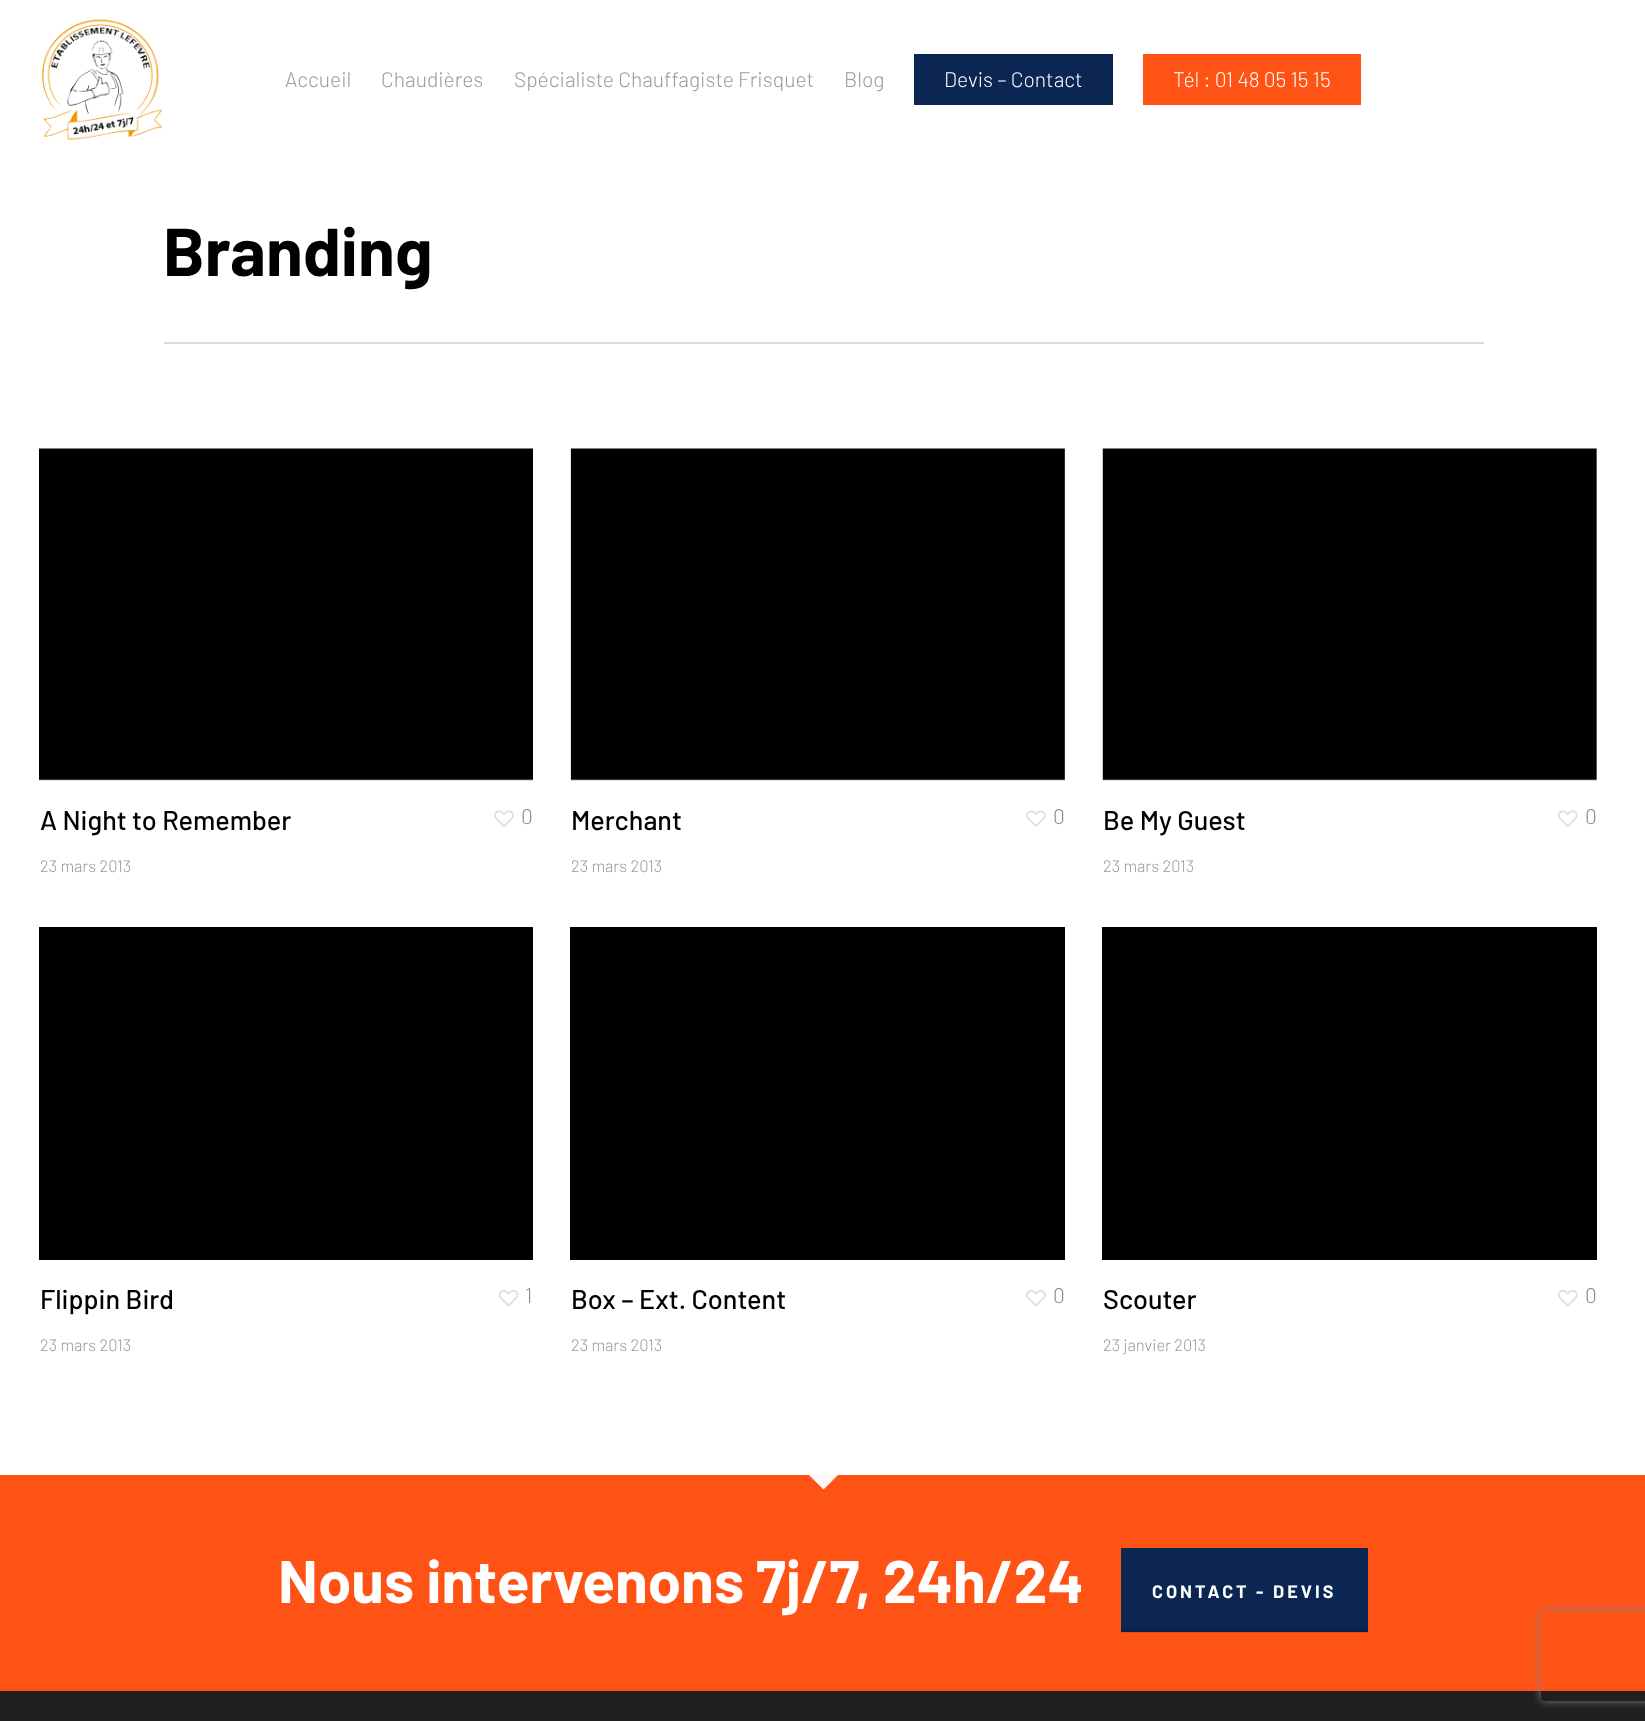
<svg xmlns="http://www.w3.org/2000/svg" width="1645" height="1721">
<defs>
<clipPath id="clip1"><path d="M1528 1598h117v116h-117zm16 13h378c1.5 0 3 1.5 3 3v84c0 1.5-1.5 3-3 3h-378c-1.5 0-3-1.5-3-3v-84c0-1.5 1.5-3 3-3z" clip-rule="evenodd"/></clipPath>
</defs>
<rect width="100%" height="100%" fill="#fff"/>
<image x="42" y="19" width="120" height="121" href="media/1.png"/>
<text x="285" y="87" style="font-family:Barlow;font-size:21px;font-weight:300;fill:#999">Accueil</text>
<text x="381" y="87" style="font-family:Barlow;font-size:21px;font-weight:300;fill:#999">Chaudières</text>
<text x="514" y="87" style="font-family:Barlow;font-size:21px;font-weight:300;fill:#999">Spécialiste Chauffagiste Frisquet</text>
<text x="844" y="87" style="font-family:Barlow;font-size:21px;font-weight:300;fill:#999">Blog</text>
<rect x="914" y="54" width="199" height="51" fill="#0b2653"/>
<text x="944" y="87" style="font-family:Barlow;font-size:21px;font-weight:300;fill:#fff">Devis – Contact</text>
<rect x="1143" y="54" width="218" height="51" fill="#ff5316"/>
<text x="1173" y="87" style="font-family:Barlow;font-size:21px;font-weight:300;fill:#fff">Tél : 01 48 05 15 15</text>
<rect x="164" y="342" width="1320" height="2" fill="#d9d9d9"/>
<text x="163" y="276" style="font-family:Barlow;font-size:67.5px;font-weight:bold;fill:#000">Branding</text>
<image x="39" y="448" width="494" height="333" href="media/2.png"/>
<text x="40" y="830" style="font-family:Barlow;font-size:27px;font-weight:500;fill:#000">A Night to Remember</text>
<text x="40" y="872" style="font-family:Barlow;font-size:16.5px;font-weight:300;fill:#999">23 mars 2013</text>
<image x="494" y="810" width="20" height="17" href="media/3.png"/>
<text x="521" y="824" style="font-family:Barlow;font-size:21px;font-weight:300;fill:#888">0</text>
<image x="570" y="448" width="495" height="333" href="media/4.png"/>
<text x="571" y="830" style="font-family:Barlow;font-size:27px;font-weight:500;fill:#000">Merchant</text>
<text x="571" y="872" style="font-family:Barlow;font-size:16.5px;font-weight:300;fill:#999">23 mars 2013</text>
<image x="1026" y="810" width="20" height="17" href="media/5.png"/>
<text x="1053" y="824" style="font-family:Barlow;font-size:21px;font-weight:300;fill:#888">0</text>
<image x="1102" y="448" width="495" height="333" href="media/6.png"/>
<text x="1103" y="830" style="font-family:Barlow;font-size:27px;font-weight:500;fill:#000">Be My Guest</text>
<text x="1103" y="872" style="font-family:Barlow;font-size:16.5px;font-weight:300;fill:#999">23 mars 2013</text>
<image x="1558" y="810" width="20" height="17" href="media/7.png"/>
<text x="1585" y="824" style="font-family:Barlow;font-size:21px;font-weight:300;fill:#888">0</text>
<rect x="39" y="927" width="494" height="333" fill="#000"/>
<text x="40" y="1309" style="font-family:Barlow;font-size:27px;font-weight:500;fill:#000">Flippin Bird</text>
<text x="40" y="1351" style="font-family:Barlow;font-size:16.5px;font-weight:300;fill:#999">23 mars 2013</text>
<image x="498" y="1290" width="21" height="17" href="media/8.png"/>
<text x="525" y="1303" style="font-family:Barlow;font-size:21px;font-weight:300;fill:#888">1</text>
<rect x="570" y="927" width="495" height="333" fill="#000"/>
<text x="571" y="1309" style="font-family:Barlow;font-size:27px;font-weight:500;fill:#000">Box – Ext. Content</text>
<text x="571" y="1351" style="font-family:Barlow;font-size:16.5px;font-weight:300;fill:#999">23 mars 2013</text>
<image x="1026" y="1289" width="20" height="18" href="media/9.png"/>
<text x="1053" y="1303" style="font-family:Barlow;font-size:21px;font-weight:300;fill:#888">0</text>
<rect x="1102" y="927" width="495" height="333" fill="#000"/>
<text x="1103" y="1309" style="font-family:Barlow;font-size:27px;font-weight:500;fill:#000">Scouter</text>
<text x="1103" y="1351" style="font-family:Barlow;font-size:16.5px;font-weight:300;fill:#999">23 janvier 2013</text>
<image x="1558" y="1289" width="20" height="18" href="media/10.png"/>
<text x="1585" y="1303" style="font-family:Barlow;font-size:21px;font-weight:300;fill:#888">0</text>
<rect y="1475" width="1645" height="216" fill="#ff5316"/>
<rect x="1121" y="1632" width="247" height="1" fill="#e64b14"/>
<path d="M808.5 1474.5h30l-15 15z" fill="#f8f8f8"/>
<text x="278" y="1603" style="font-family:Barlow;font-size:60px;font-weight:bold;fill:#fff">Nous intervenons 7j/7, 24h/24</text>
<rect x="1121" y="1548" width="247" height="80" fill="#0b2653"/>
<rect x="1121" y="1628" width="247" height="4" fill="#0a224b"/>
<text x="1152" y="1598" style="font-family:Barlow;font-size:18px;font-weight:bold;letter-spacing:3px;fill:#fff">CONTACT - DEVIS</text>
<rect y="1691" width="1645" height="30" fill="#1f1f1f"/>
<g clip-path="url(#clip1)">
<rect x="1541" y="1611" width="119" height="90" rx="3" fill="#808080" filter="blur(4px)"/>
</g>
</svg>
